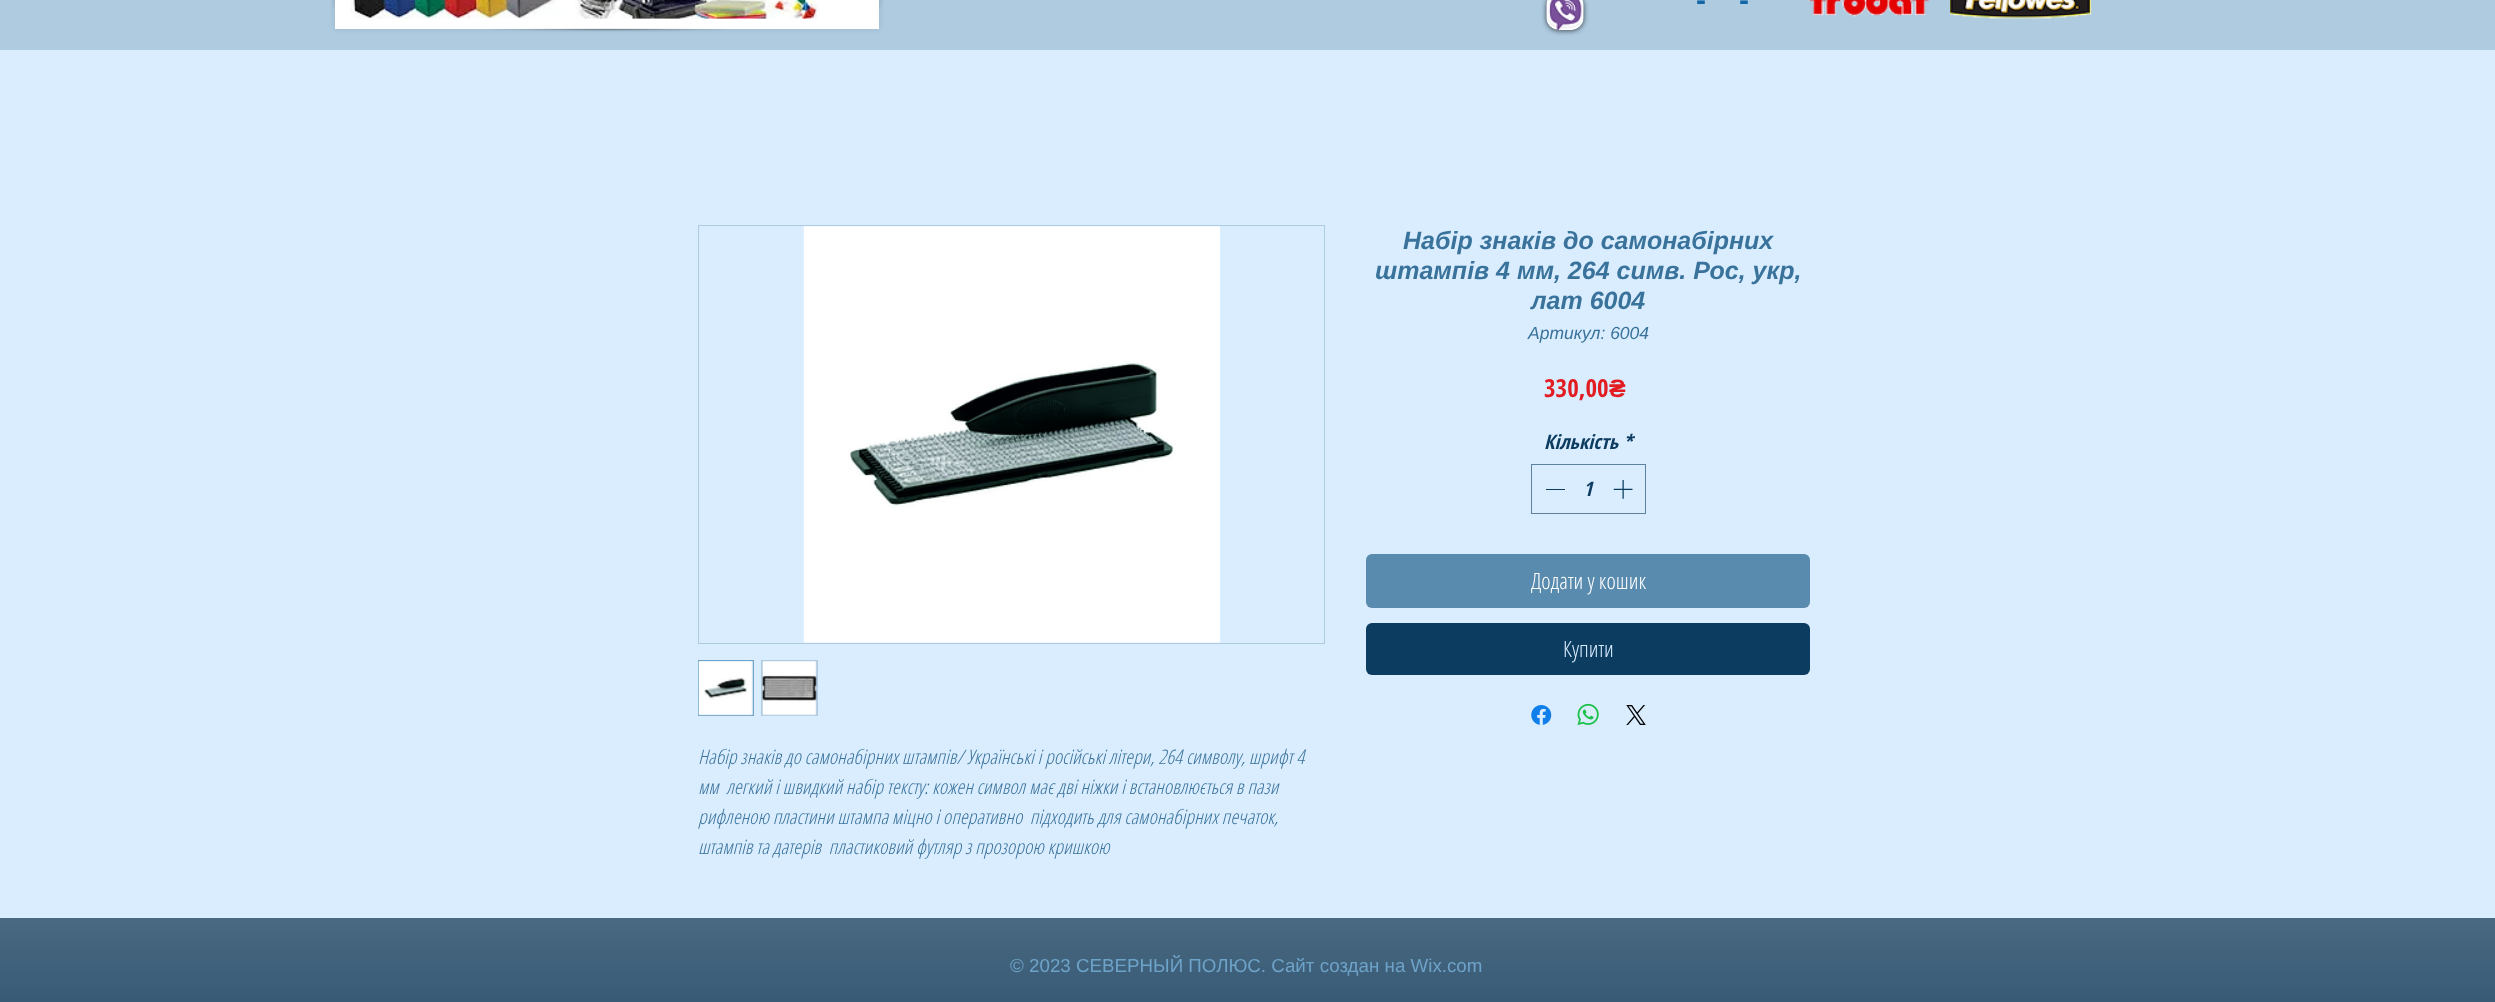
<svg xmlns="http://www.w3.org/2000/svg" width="2495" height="1002">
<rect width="100%" height="100%" fill="#daedff"/>
<rect width="2495" height="50" fill="#afcbe0"/>
<rect x="335" y="-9" width="544" height="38" fill="#0000001a" filter="blur(3px)"/>
<rect x="335" width="544" height="29" fill="#fff"/>
<image x="350" y="0" width="470" height="19" href="media/1.png"/>
<image x="492" y="28" width="231" height="4" href="media/2.png"/>
<image x="331" y="0" width="4" height="9" href="media/3.png"/>
<image x="879" y="0" width="4" height="9" href="media/4.png"/>
<rect x="1546" y="-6" width="38" height="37" rx="13" fill="#00000099" filter="blur(2.5px)"/>
<image x="1546" y="0" width="38" height="30" href="media/5.png"/>
<text x="1696" y="10" style="font-family:Liberation Sans;font-size:30px;font-weight:bold;fill:#1468a8">-</text>
<text x="1739" y="10" style="font-family:Liberation Sans;font-size:30px;font-weight:bold;fill:#1468a8">-</text>
<image x="1807" y="0" width="123" height="17" href="media/6.png"/>
<image x="1950" y="0" width="142" height="20" href="media/7.png"/>
<text x="1403" y="249" style="font-family:Liberation Sans;font-size:25px;font-weight:bold;font-style:italic;fill:#39729b">Набір знаків до самонабірних</text>
<text x="1375" y="279" style="font-family:Liberation Sans;font-size:25px;font-weight:bold;font-style:italic;fill:#39729b">штампів 4 мм, 264 симв. Рос, укр,</text>
<text x="1531" y="309" style="font-family:Liberation Sans;font-size:25px;font-weight:bold;font-style:italic;fill:#39729b">лат 6004</text>
<text x="1528" y="339" style="font-family:Liberation Sans;font-size:17.5px;font-style:italic;fill:#39729b">Артикул: 6004</text>
<text x="1544" y="397" style="font-family:Open Sans Condensed;font-size:25px;font-weight:bold;fill:#e21c21">330,00</text>
<text x="1609" y="397" style="font-family:Liberation Sans;font-size:25px;font-weight:bold;fill:#e21c21">₴</text>
<text x="1544" y="449" style="font-family:Open Sans Condensed;font-size:20px;font-weight:bold;font-style:italic;fill:#0c3c60">Кількість *</text>
<rect x="1531.5" y="464.5" width="114" height="49" fill="none" stroke="#5e83a0"/>
<rect x="1546" y="489" width="19" height="1" fill="#0c3c60"/>
<text x="1583" y="496" style="font-family:Open Sans Condensed;font-size:20px;font-weight:bold;font-style:italic;fill:#0c3c60">1</text>
<image x="1613" y="480" width="20" height="19" href="media/8.png"/>
<rect x="1366" y="554" width="444" height="54" rx="6" fill="#598baf"/>
<text x="1531" y="589" style="font-family:Open Sans Condensed;font-size:22.5px;font-weight:300;fill:#fff">Додати у кошик</text>
<rect x="1366" y="623" width="444" height="52" rx="6" fill="#0c3c60"/>
<text x="1563" y="657" style="font-family:Open Sans Condensed;font-size:22.5px;font-weight:300;fill:#daedff">Купити</text>
<image x="1531" y="705" width="21" height="20" href="media/9.png"/>
<image x="1577" y="703" width="22" height="23" href="media/10.png"/>
<image x="1626" y="705" width="20" height="20" href="media/11.png"/>
<rect x="698.5" y="225.5" width="626" height="418" fill="none" stroke="#afcbe0"/>
<image x="803" y="226" width="418" height="417" href="media/12.png"/>
<rect x="698.5" y="660.5" width="55" height="55" fill="#afcbe0" stroke="#6ea4ca"/>
<image x="698" y="661" width="55" height="55" href="media/13.png"/>
<rect x="761" y="660" width="57" height="56" fill="#afcbe0"/>
<image x="762" y="661" width="55" height="55" href="media/14.png"/>
<text x="698" y="764" style="font-family:Open Sans Condensed;font-size:20px;font-weight:300;font-style:italic;fill:#39729b">Набір знаків до самонабірних штампів/ Українські і російські літери, 264 символу, шрифт 4</text>
<text x="698" y="794" style="font-family:Open Sans Condensed;font-size:20px;font-weight:300;font-style:italic;fill:#39729b" xml:space="preserve">мм  легкий і швидкий набір тексту: кожен символ має дві ніжки і встановлюється в пази</text>
<text x="698" y="824" style="font-family:Open Sans Condensed;font-size:20px;font-weight:300;font-style:italic;fill:#39729b" xml:space="preserve">рифленою пластини штампа міцно і оперативно  підходить для самонабірних печаток,</text>
<text x="698" y="854" style="font-family:Open Sans Condensed;font-size:20px;font-weight:300;font-style:italic;fill:#39729b" xml:space="preserve">штампів та датерів  пластиковий футляр з прозорою кришкою</text>
<rect y="918" width="2495" height="84" fill="#0b3556"/>
<image x="0" y="917" width="2495" height="85" href="media/15.png"/>
<text x="1010" y="972" style="font-family:Liberation Sans;font-size:18.75px;fill:#6ea3c9">© 2023 СЕВЕРНЫЙ ПОЛЮС. Сайт создан на Wix.com</text>
</svg>
